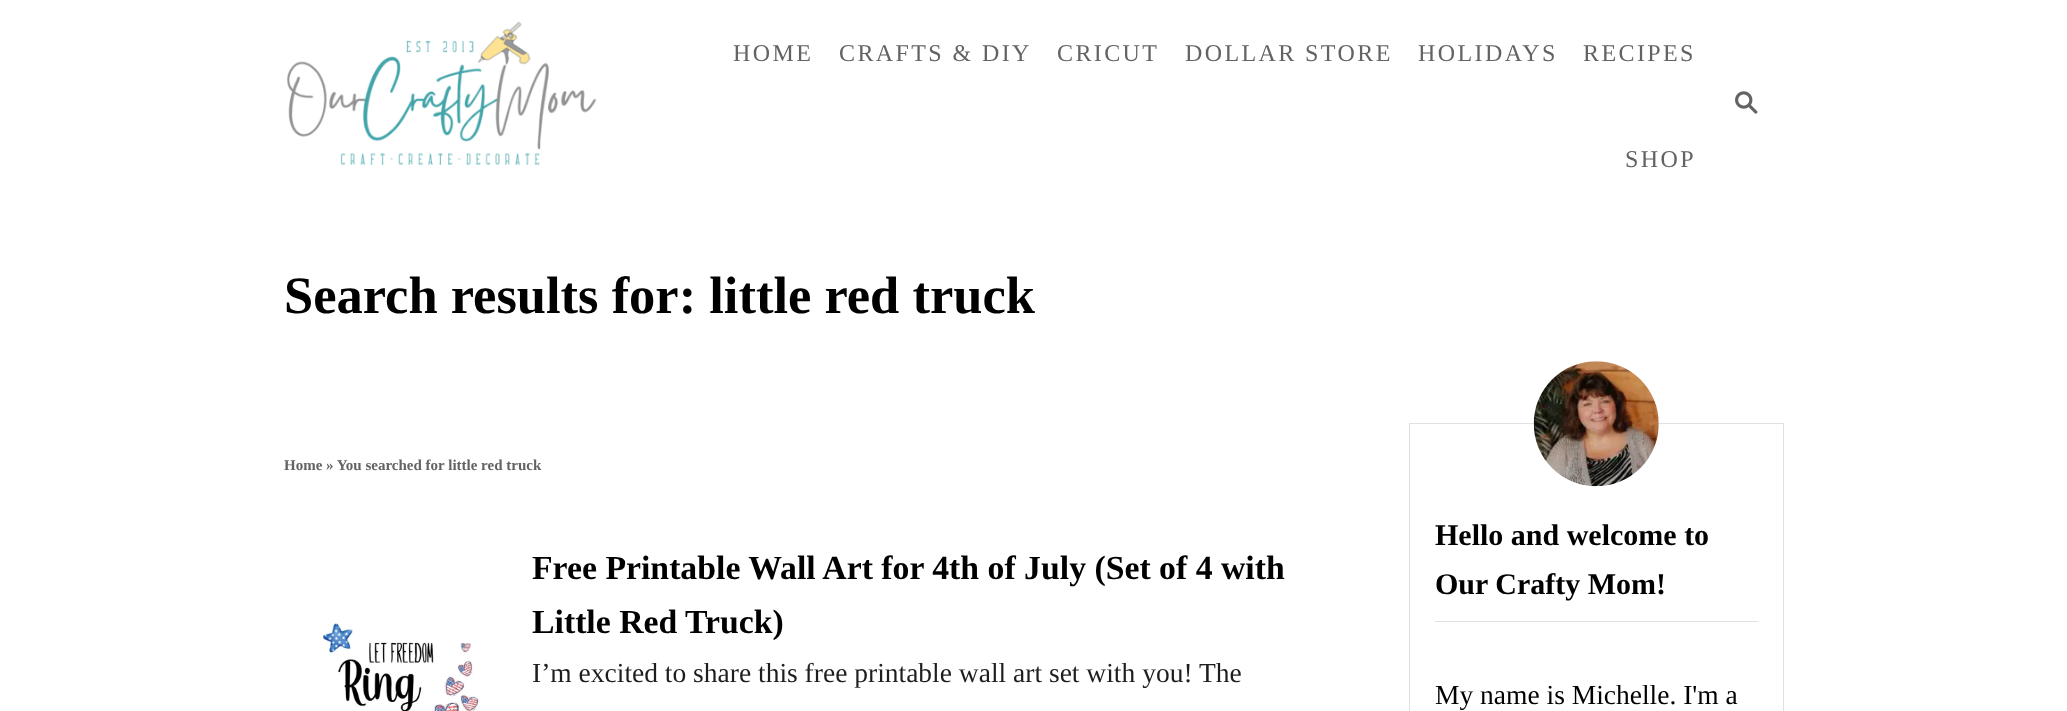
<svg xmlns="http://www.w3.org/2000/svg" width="2067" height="711">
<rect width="100%" height="100%" fill="#fff"/>
<image x="286" y="21" width="311" height="145" href="media/1.png"/>
<text x="733" y="61" style="font-family:Liberation Serif;font-size:24px;letter-spacing:2.4px;fill:#636363">HOME</text>
<text x="839" y="61" style="font-family:Liberation Serif;font-size:24px;letter-spacing:2.4px;fill:#636363">CRAFTS &amp; DIY</text>
<text x="1057" y="61" style="font-family:Liberation Serif;font-size:24px;letter-spacing:2.4px;fill:#636363">CRICUT</text>
<text x="1185" y="61" style="font-family:Liberation Serif;font-size:24px;letter-spacing:2.4px;fill:#636363">DOLLAR STORE</text>
<text x="1418" y="61" style="font-family:Liberation Serif;font-size:24px;letter-spacing:2.4px;fill:#636363">HOLIDAYS</text>
<text x="1583" y="61" style="font-family:Liberation Serif;font-size:24px;letter-spacing:2.4px;fill:#636363">RECIPES</text>
<text x="1625" y="167" style="font-family:Liberation Serif;font-size:24px;letter-spacing:2.4px;fill:#636363">SHOP</text>
<image x="1735" y="91" width="23" height="23" href="media/2.png"/>
<text x="284" y="313" style="font-family:Liberation Serif;font-size:52.5px;font-weight:bold;fill:#000">Search results for: little red truck</text>
<text x="284" y="470" style="font-family:Liberation Serif;font-size:15px;font-weight:bold;fill:#636363">Home</text>
<text x="326" y="470" style="font-family:Liberation Serif;font-size:15px;font-weight:bold;fill:#636363">» You searched for little red truck</text>
<image x="323" y="623" width="157" height="88" href="media/3.png"/>
<text x="532" y="579" style="font-family:Liberation Serif;font-size:33.75px;font-weight:bold;fill:#000">Free Printable Wall Art for 4th of July (Set of 4 with</text>
<text x="532" y="633" style="font-family:Liberation Serif;font-size:33.75px;font-weight:bold;fill:#000">Little Red Truck)</text>
<text x="532" y="682" style="font-family:Liberation Serif;font-size:27.5px;fill:#1e1e1e">I’m excited to share this free printable wall art set with you! The</text>
<rect x="1409.5" y="423.5" width="374" height="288" fill="none" stroke="#e1e1e1"/>
<image x="1533" y="361" width="126" height="126" href="media/4.png"/>
<rect x="1435" y="621" width="323" height="1" fill="#e1e1e1"/>
<text x="1435" y="545" style="font-family:Liberation Serif;font-size:30px;font-weight:bold;fill:#000">Hello and welcome to</text>
<text x="1435" y="594" style="font-family:Liberation Serif;font-size:30px;font-weight:bold;fill:#000">Our Crafty Mom!</text>
<text x="1435" y="704" style="font-family:Liberation Serif;font-size:27.5px;fill:#000">My name is Michelle. I'm a</text>
</svg>
